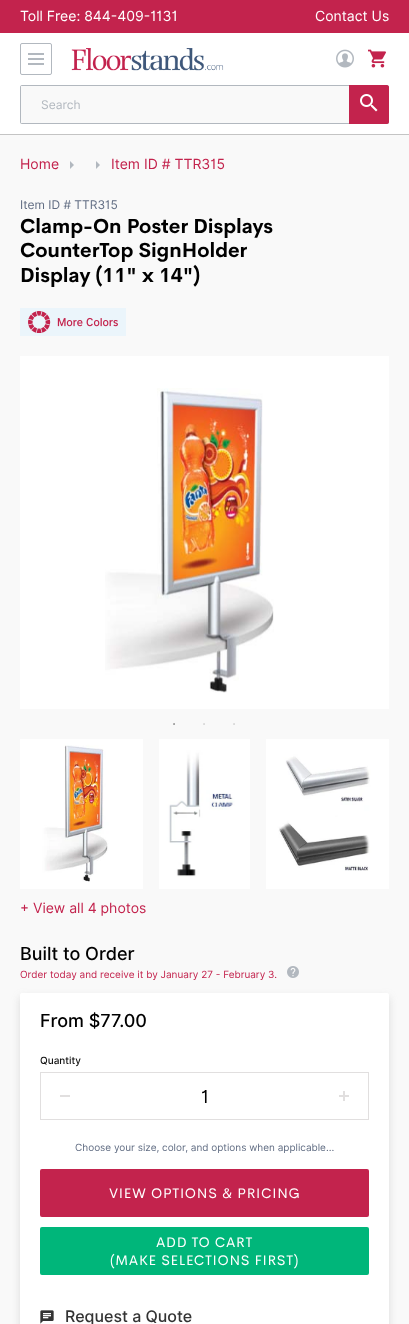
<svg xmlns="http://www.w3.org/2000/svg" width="409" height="1324">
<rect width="100%" height="100%" fill="#f9f9f9"/>
<rect y="33" width="409" height="101" fill="#fff"/>
<rect y="134" width="409" height="1" fill="#c4c4c4"/>
<rect width="409" height="33" fill="#c3234d"/>
<text x="20" y="21" style="font-family:Inter;font-size:14px;fill:#fff">Toll Free: 844-409-1131</text>
<text x="315" y="21" style="font-family:Inter;font-size:14px;fill:#fff">Contact Us</text>
<rect x="20.5" y="43.5" width="31" height="31" rx="1.5" fill="none" stroke="#b2b8bf"/>
<rect x="28" y="53" width="16" height="2" fill="#b2b8bf"/>
<rect x="28" y="58" width="16" height="2" fill="#b2b8bf"/>
<rect x="28" y="63" width="16" height="2" fill="#b2b8bf"/>
<image x="71" y="48" width="153" height="23" href="media/1.png"/>
<image x="336" y="49" width="18" height="19" href="media/2.png"/>
<image x="368" y="49" width="18" height="19" href="media/3.png"/>
<rect x="20" y="85" width="369" height="39" rx="2" fill="#f9f9f9"/>
<path d="M22 85c-1 0-2 1-2 2v35c0 1 1 2 2 2h365c1 0 2-1 2-2v-35c0-1-1-2-2-2zm-1 1v37h367v-37z" fill="#b2b8bf" fill-rule="evenodd"/>
<text x="41" y="109" style="font-family:Inter;font-size:12px;fill:#b2b8bf">Search</text>
<path d="M349 85h38c1 0 2 1 2 2v35c0 1-1 2-2 2h-38z" fill="#c3234d"/>
<image x="360" y="94" width="18" height="18" href="media/4.png"/>
<text x="20" y="169" style="font-family:Inter;font-size:14px;fill:#c3234d">Home</text>
<image x="70" y="161" width="4" height="8" href="media/5.png"/>
<image x="96" y="161" width="4" height="8" href="media/5.png"/>
<text x="111" y="169" style="font-family:Inter;font-size:14px;fill:#c3234d">Item ID # TTR315</text>
<text x="20" y="209" style="font-family:Inter;font-size:12px;fill:#616d83">Item ID # TTR315</text>
<text x="20" y="233" style="font-family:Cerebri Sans;font-size:20px;font-weight:bold;fill:#000">Clamp-On Poster Displays</text>
<text x="20" y="257" style="font-family:Cerebri Sans;font-size:20px;font-weight:bold;fill:#000">CounterTop SignHolder</text>
<text x="20" y="282" style="font-family:Cerebri Sans;font-size:20px;font-weight:bold;fill:#000">Display (11" x 14")</text>
<rect x="20" y="308" width="106" height="28" fill="#ebf5fb"/>
<image x="28" y="311" width="90" height="22" href="media/6.png"/>
<rect x="20" y="356" width="369" height="353" fill="#fff"/>
<image x="105" y="388" width="169" height="305" href="media/7.png"/>
<text x="173" y="726" style="font-family:Liberation Serif;font-size:6px;fill:#3e3e3e">•</text>
<text x="203" y="726" style="font-family:Liberation Serif;font-size:6px;fill:#bbb">•</text>
<text x="233" y="726" style="font-family:Liberation Serif;font-size:6px;fill:#bbb">•</text>
<image x="20" y="739" width="123" height="150" href="media/8.png"/>
<image x="159" y="739" width="91" height="150" href="media/9.png"/>
<image x="266" y="739" width="123" height="150" href="media/10.png"/>
<text x="20" y="913" style="font-family:Inter;font-size:14px;fill:#c3234d">+ View all 4 photos</text>
<text x="20" y="960" style="font-family:Inter;font-size:18px;font-weight:500;fill:#000">Built to Order</text>
<text x="20" y="978" style="font-family:Inter;font-size:10px;fill:#c3234d">Order today and receive it by January 27 - February 3.</text>
<image x="287" y="966" width="12" height="12" href="media/11.png"/>
<rect x="20" y="997" width="369" height="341" rx="2" fill="#8282823d" filter="blur(4px)"/>
<rect x="20" y="993" width="369" height="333" rx="2" fill="#fff"/>
<text x="40" y="1027" style="font-family:Inter;font-size:18px;font-weight:500;fill:#000">From $77.00</text>
<text x="40" y="1064" style="font-family:Inter;font-size:10px;font-weight:500;fill:#121212">Quantity</text>
<rect x="40.5" y="1072.5" width="328" height="47" fill="none" stroke="#e1dfdf"/>
<rect x="60" y="1095" width="10" height="2" fill="#e1dfdf"/>
<text x="201" y="1103" style="font-family:Inter;font-size:18px;fill:#000">1</text>
<rect x="339" y="1095" width="10" height="2" fill="#e1dfdf"/>
<rect x="343" y="1091" width="2" height="10" fill="#e1dfdf"/>
<text x="75" y="1151" style="font-family:Inter;font-size:10px;fill:#616d83">Choose your size, color, and options when applicable...</text>
<rect x="40" y="1169" width="329" height="48" rx="2" fill="#c3234d"/>
<text x="109" y="1198" style="font-family:Cerebri Sans;font-size:14px;letter-spacing:0.7px;fill:#fff">VIEW OPTIONS &amp; PRICING</text>
<rect x="40" y="1227" width="329" height="48" rx="2" fill="#00b67a"/>
<text x="156" y="1247" style="font-family:Cerebri Sans;font-size:14px;letter-spacing:0.7px;fill:#fff">ADD TO CART</text>
<text x="110" y="1265" style="font-family:Cerebri Sans;font-size:14px;letter-spacing:0.7px;fill:#fff">(MAKE SELECTIONS FIRST)</text>
<image x="40" y="1310" width="14" height="14" href="media/12.png"/>
<text x="65" y="1322" style="font-family:Inter;font-size:16px;font-weight:500;fill:#333">Request a Quote</text>
</svg>
